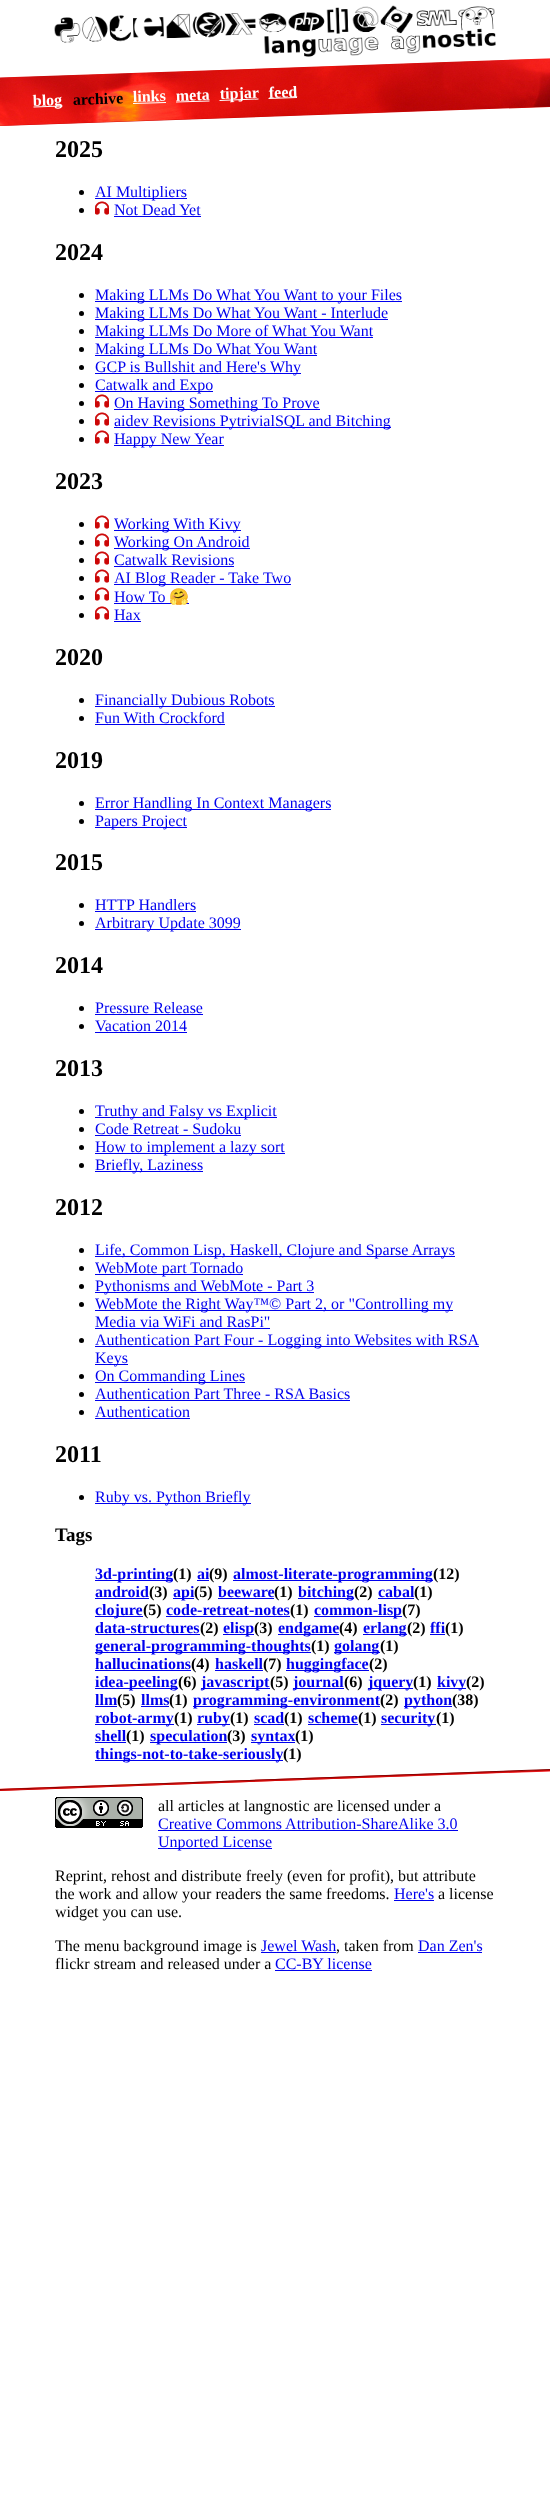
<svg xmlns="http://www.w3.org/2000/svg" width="550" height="2503">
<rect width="100%" height="100%" fill="#fff"/>
<image x="54" y="5" width="442" height="52" href="media/1.png"/>
<path d="M-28 79l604-21l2 48l-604 21z" fill="#cc0606"/>
<image x="0" y="58" width="550" height="68" href="media/2.png"/>
<path d="M33.5 106.5l29-1v1l-29 1z" fill="#fff"/>
<text x="33" y="106" transform="rotate(-2 33 106)" style="font-family:Liberation Serif;font-size:16px;font-weight:bold;fill:#fff">blog</text>
<text x="73" y="105" transform="rotate(-2 73 105)" style="font-family:Liberation Serif;font-size:16px;font-weight:bold;fill:#000">archive</text>
<text x="133" y="102" transform="rotate(-2 133 102)" style="font-family:Liberation Serif;font-size:16px;font-weight:bold;fill:#fff">links</text>
<path d="M133 103l33-1v1l-33 1z" fill="#fff"/>
<path d="M176 101.5l33.5-1v1l-33.5 1z" fill="#fff"/>
<text x="176" y="101" transform="rotate(-2 176 101)" style="font-family:Liberation Serif;font-size:16px;font-weight:bold;fill:#fff">meta</text>
<path d="M219.5 100l39-1.5v1l-39 1.5z" fill="#fff"/>
<text x="220" y="99" transform="rotate(-2 220 99)" style="font-family:Liberation Serif;font-size:16px;font-weight:bold;fill:#fff">tipjar</text>
<path d="M268.5 98l28.5-1v1l-28.5 1z" fill="#fff"/>
<text x="269" y="98" transform="rotate(-2 269 98)" style="font-family:Liberation Serif;font-size:16px;font-weight:bold;fill:#fff">feed</text>
<text x="55" y="157" style="font-family:Liberation Serif;font-size:24px;font-weight:bold;fill:#000">2025</text>
<circle cx="81.5" cy="192.5" r="2.5" fill="#000"/>
<rect x="95" y="198" width="92" height="1" fill="#00e"/>
<text x="95" y="197" style="font-family:Liberation Serif;font-size:16px;fill:#00e">AI Multipliers</text>
<circle cx="81.5" cy="210.5" r="2.5" fill="#000"/>
<image x="95" y="201" width="14" height="14" href="media/3.png"/>
<text x="114" y="215" style="font-family:Liberation Serif;font-size:16px;fill:#00e">Not Dead Yet</text>
<rect x="114" y="216" width="87" height="1" fill="#00e"/>
<text x="55" y="260" style="font-family:Liberation Serif;font-size:24px;font-weight:bold;fill:#000">2024</text>
<circle cx="81.5" cy="295.5" r="2.5" fill="#000"/>
<rect x="95" y="301" width="307" height="1" fill="#00e"/>
<text x="95" y="300" style="font-family:Liberation Serif;font-size:16px;fill:#00e">Making LLMs Do What You Want to your Files</text>
<circle cx="81.5" cy="313.5" r="2.5" fill="#000"/>
<rect x="95" y="319" width="293" height="1" fill="#00e"/>
<text x="95" y="318" style="font-family:Liberation Serif;font-size:16px;fill:#00e">Making LLMs Do What You Want - Interlude</text>
<circle cx="81.5" cy="331.5" r="2.5" fill="#000"/>
<rect x="95" y="337" width="278" height="1" fill="#00e"/>
<text x="95" y="336" style="font-family:Liberation Serif;font-size:16px;fill:#00e">Making LLMs Do More of What You Want</text>
<circle cx="81.5" cy="349.5" r="2.5" fill="#000"/>
<rect x="95" y="355" width="222" height="1" fill="#00e"/>
<text x="95" y="354" style="font-family:Liberation Serif;font-size:16px;fill:#00e">Making LLMs Do What You Want</text>
<circle cx="81.5" cy="367.5" r="2.5" fill="#000"/>
<rect x="95" y="373" width="206" height="1" fill="#00e"/>
<text x="95" y="372" style="font-family:Liberation Serif;font-size:16px;fill:#00e">GCP is Bullshit and Here's Why</text>
<circle cx="81.5" cy="385.5" r="2.5" fill="#000"/>
<rect x="95" y="391" width="118" height="1" fill="#00e"/>
<text x="95" y="390" style="font-family:Liberation Serif;font-size:16px;fill:#00e">Catwalk and Expo</text>
<circle cx="81.5" cy="403.5" r="2.5" fill="#000"/>
<image x="95" y="394" width="14" height="14" href="media/3.png"/>
<rect x="114" y="409" width="206" height="1" fill="#00e"/>
<text x="114" y="408" style="font-family:Liberation Serif;font-size:16px;fill:#00e">On Having Something To Prove</text>
<circle cx="81.5" cy="421.5" r="2.5" fill="#000"/>
<image x="95" y="412" width="14" height="14" href="media/3.png"/>
<rect x="114" y="427" width="277" height="1" fill="#00e"/>
<text x="114" y="426" style="font-family:Liberation Serif;font-size:16px;fill:#00e">aidev Revisions PytrivialSQL and Bitching</text>
<circle cx="81.5" cy="439.5" r="2.5" fill="#000"/>
<image x="95" y="430" width="14" height="14" href="media/3.png"/>
<rect x="114" y="445" width="110" height="1" fill="#00e"/>
<text x="114" y="444" style="font-family:Liberation Serif;font-size:16px;fill:#00e">Happy New Year</text>
<text x="55" y="489" style="font-family:Liberation Serif;font-size:24px;font-weight:bold;fill:#000">2023</text>
<circle cx="81.5" cy="524.5" r="2.5" fill="#000"/>
<image x="95" y="515" width="14" height="14" href="media/3.png"/>
<rect x="114" y="530" width="127" height="1" fill="#00e"/>
<text x="114" y="529" style="font-family:Liberation Serif;font-size:16px;fill:#00e">Working With Kivy</text>
<circle cx="81.5" cy="542.5" r="2.5" fill="#000"/>
<image x="95" y="533" width="14" height="14" href="media/3.png"/>
<rect x="114" y="548" width="136" height="1" fill="#00e"/>
<text x="114" y="547" style="font-family:Liberation Serif;font-size:16px;fill:#00e">Working On Android</text>
<circle cx="81.5" cy="560.5" r="2.5" fill="#000"/>
<image x="95" y="551" width="14" height="14" href="media/3.png"/>
<text x="114" y="565" style="font-family:Liberation Serif;font-size:16px;fill:#00e">Catwalk Revisions</text>
<rect x="114" y="566" width="120" height="1" fill="#00e"/>
<circle cx="81.5" cy="578.5" r="2.5" fill="#000"/>
<image x="95" y="569" width="14" height="14" href="media/3.png"/>
<rect x="114" y="584" width="177" height="1" fill="#00e"/>
<text x="114" y="583" style="font-family:Liberation Serif;font-size:16px;fill:#00e">AI Blog Reader - Take Two</text>
<circle cx="81.5" cy="597.5" r="2.5" fill="#000"/>
<image x="95" y="587" width="14" height="14" href="media/3.png"/>
<text x="114" y="602" style="font-family:Liberation Serif;font-size:16px;fill:#00e">How To</text>
<rect x="114" y="603" width="75" height="1" fill="#00e"/>
<text x="169" y="602" style="font-family:Noto Color Emoji;font-size:16px;fill:#00e">🤗</text>
<circle cx="81.5" cy="615.5" r="2.5" fill="#000"/>
<image x="95" y="606" width="14" height="14" href="media/3.png"/>
<text x="114" y="620" style="font-family:Liberation Serif;font-size:16px;fill:#00e">Hax</text>
<rect x="114" y="621" width="27" height="1" fill="#00e"/>
<text x="55" y="665" style="font-family:Liberation Serif;font-size:24px;font-weight:bold;fill:#000">2020</text>
<circle cx="81.5" cy="700.5" r="2.5" fill="#000"/>
<rect x="95" y="706" width="180" height="1" fill="#00e"/>
<text x="95" y="705" style="font-family:Liberation Serif;font-size:16px;fill:#00e">Financially Dubious Robots</text>
<circle cx="81.5" cy="718.5" r="2.5" fill="#000"/>
<text x="95" y="723" style="font-family:Liberation Serif;font-size:16px;fill:#00e">Fun With Crockford</text>
<rect x="95" y="724" width="130" height="1" fill="#00e"/>
<text x="55" y="768" style="font-family:Liberation Serif;font-size:24px;font-weight:bold;fill:#000">2019</text>
<circle cx="81.5" cy="803.5" r="2.5" fill="#000"/>
<rect x="95" y="809" width="236" height="1" fill="#00e"/>
<text x="95" y="808" style="font-family:Liberation Serif;font-size:16px;fill:#00e">Error Handling In Context Managers</text>
<circle cx="81.5" cy="821.5" r="2.5" fill="#000"/>
<rect x="95" y="827" width="92" height="1" fill="#00e"/>
<text x="95" y="826" style="font-family:Liberation Serif;font-size:16px;fill:#00e">Papers Project</text>
<text x="55" y="870" style="font-family:Liberation Serif;font-size:24px;font-weight:bold;fill:#000">2015</text>
<circle cx="81.5" cy="905.5" r="2.5" fill="#000"/>
<text x="95" y="910" style="font-family:Liberation Serif;font-size:16px;fill:#00e">HTTP Handlers</text>
<rect x="95" y="911" width="101" height="1" fill="#00e"/>
<circle cx="81.5" cy="923.5" r="2.5" fill="#000"/>
<rect x="95" y="929" width="146" height="1" fill="#00e"/>
<text x="95" y="928" style="font-family:Liberation Serif;font-size:16px;fill:#00e">Arbitrary Update 3099</text>
<text x="55" y="973" style="font-family:Liberation Serif;font-size:24px;font-weight:bold;fill:#000">2014</text>
<circle cx="81.5" cy="1008.5" r="2.5" fill="#000"/>
<text x="95" y="1013" style="font-family:Liberation Serif;font-size:16px;fill:#00e">Pressure Release</text>
<rect x="95" y="1014" width="108" height="1" fill="#00e"/>
<circle cx="81.5" cy="1026.5" r="2.5" fill="#000"/>
<text x="95" y="1031" style="font-family:Liberation Serif;font-size:16px;fill:#00e">Vacation 2014</text>
<rect x="95" y="1032" width="92" height="1" fill="#00e"/>
<text x="55" y="1076" style="font-family:Liberation Serif;font-size:24px;font-weight:bold;fill:#000">2013</text>
<circle cx="81.5" cy="1111.5" r="2.5" fill="#000"/>
<rect x="95" y="1117" width="182" height="1" fill="#00e"/>
<text x="95" y="1116" style="font-family:Liberation Serif;font-size:16px;fill:#00e">Truthy and Falsy vs Explicit</text>
<circle cx="81.5" cy="1129.5" r="2.5" fill="#000"/>
<text x="95" y="1134" style="font-family:Liberation Serif;font-size:16px;fill:#00e">Code Retreat - Sudoku</text>
<rect x="95" y="1135" width="146" height="1" fill="#00e"/>
<circle cx="81.5" cy="1147.5" r="2.5" fill="#000"/>
<rect x="95" y="1153" width="190" height="1" fill="#00e"/>
<text x="95" y="1152" style="font-family:Liberation Serif;font-size:16px;fill:#00e">How to implement a lazy sort</text>
<circle cx="81.5" cy="1165.5" r="2.5" fill="#000"/>
<rect x="95" y="1171" width="108" height="1" fill="#00e"/>
<text x="95" y="1170" style="font-family:Liberation Serif;font-size:16px;fill:#00e">Briefly, Laziness</text>
<text x="55" y="1215" style="font-family:Liberation Serif;font-size:24px;font-weight:bold;fill:#000">2012</text>
<circle cx="81.5" cy="1250.5" r="2.5" fill="#000"/>
<rect x="95" y="1256" width="360" height="1" fill="#00e"/>
<text x="95" y="1255" style="font-family:Liberation Serif;font-size:16px;fill:#00e">Life, Common Lisp, Haskell, Clojure and Sparse Arrays</text>
<circle cx="81.5" cy="1268.5" r="2.5" fill="#000"/>
<rect x="95" y="1274" width="148" height="1" fill="#00e"/>
<text x="95" y="1273" style="font-family:Liberation Serif;font-size:16px;fill:#00e">WebMote part Tornado</text>
<circle cx="81.5" cy="1286.5" r="2.5" fill="#000"/>
<rect x="95" y="1292" width="219" height="1" fill="#00e"/>
<text x="95" y="1291" style="font-family:Liberation Serif;font-size:16px;fill:#00e">Pythonisms and WebMote - Part 3</text>
<circle cx="81.5" cy="1304.5" r="2.5" fill="#000"/>
<rect x="95" y="1310" width="358" height="1" fill="#00e"/>
<text x="95" y="1309" style="font-family:Liberation Serif;font-size:16px;fill:#00e">WebMote the Right Way™© Part 2, or "Controlling my</text>
<text x="95" y="1327" style="font-family:Liberation Serif;font-size:16px;fill:#00e">Media via WiFi and RasPi"</text>
<rect x="95" y="1328" width="175" height="1" fill="#00e"/>
<circle cx="81.5" cy="1340.5" r="2.5" fill="#000"/>
<rect x="95" y="1346" width="384" height="1" fill="#00e"/>
<text x="95" y="1345" style="font-family:Liberation Serif;font-size:16px;fill:#00e">Authentication Part Four - Logging into Websites with RSA</text>
<rect x="95" y="1364" width="33" height="1" fill="#00e"/>
<text x="95" y="1363" style="font-family:Liberation Serif;font-size:16px;fill:#00e">Keys</text>
<circle cx="81.5" cy="1376.5" r="2.5" fill="#000"/>
<rect x="95" y="1382" width="150" height="1" fill="#00e"/>
<text x="95" y="1381" style="font-family:Liberation Serif;font-size:16px;fill:#00e">On Commanding Lines</text>
<circle cx="81.5" cy="1394.5" r="2.5" fill="#000"/>
<text x="95" y="1399" style="font-family:Liberation Serif;font-size:16px;fill:#00e">Authentication Part Three - RSA Basics</text>
<rect x="95" y="1400" width="255" height="1" fill="#00e"/>
<circle cx="81.5" cy="1412.5" r="2.5" fill="#000"/>
<text x="95" y="1417" style="font-family:Liberation Serif;font-size:16px;fill:#00e">Authentication</text>
<rect x="95" y="1418" width="95" height="1" fill="#00e"/>
<text x="55" y="1462" style="font-family:Liberation Serif;font-size:24px;font-weight:bold;fill:#000">2011</text>
<circle cx="81.5" cy="1497.5" r="2.5" fill="#000"/>
<rect x="95" y="1503" width="156" height="1" fill="#00e"/>
<text x="95" y="1502" style="font-family:Liberation Serif;font-size:16px;fill:#00e">Ruby vs. Python Briefly</text>
<text x="55" y="1541" style="font-family:Liberation Serif;font-size:19px;font-weight:bold;fill:#000">Tags</text>
<rect x="95" y="1580" width="78" height="1" fill="#00e"/>
<text x="95" y="1579" style="font-family:Liberation Serif;font-size:16px;font-weight:bold;fill:#00e">3d-printing</text>
<text x="173" y="1579" style="font-family:Liberation Serif;font-size:16px;font-weight:bold;fill:#000">(1)</text>
<text x="197" y="1579" style="font-family:Liberation Serif;font-size:16px;font-weight:bold;fill:#00e">ai</text>
<rect x="197" y="1580" width="12" height="1" fill="#00e"/>
<text x="209" y="1579" style="font-family:Liberation Serif;font-size:16px;font-weight:bold;fill:#000">(9)</text>
<rect x="233" y="1580" width="200" height="1" fill="#00e"/>
<text x="233" y="1579" style="font-family:Liberation Serif;font-size:16px;font-weight:bold;fill:#00e">almost-literate-programming</text>
<text x="433" y="1579" style="font-family:Liberation Serif;font-size:16px;font-weight:bold;fill:#000">(12)</text>
<text x="95" y="1597" style="font-family:Liberation Serif;font-size:16px;font-weight:bold;fill:#00e">android</text>
<rect x="95" y="1598" width="54" height="1" fill="#00e"/>
<text x="149" y="1597" style="font-family:Liberation Serif;font-size:16px;font-weight:bold;fill:#000">(3)</text>
<rect x="173" y="1598" width="21" height="1" fill="#00e"/>
<text x="173" y="1597" style="font-family:Liberation Serif;font-size:16px;font-weight:bold;fill:#00e">api</text>
<text x="194" y="1597" style="font-family:Liberation Serif;font-size:16px;font-weight:bold;fill:#000">(5)</text>
<text x="218" y="1597" style="font-family:Liberation Serif;font-size:16px;font-weight:bold;fill:#00e">beeware</text>
<rect x="218" y="1598" width="56" height="1" fill="#00e"/>
<text x="274" y="1597" style="font-family:Liberation Serif;font-size:16px;font-weight:bold;fill:#000">(1)</text>
<rect x="298" y="1598" width="56" height="1" fill="#00e"/>
<text x="298" y="1597" style="font-family:Liberation Serif;font-size:16px;font-weight:bold;fill:#00e">bitching</text>
<text x="354" y="1597" style="font-family:Liberation Serif;font-size:16px;font-weight:bold;fill:#000">(2)</text>
<text x="378" y="1597" style="font-family:Liberation Serif;font-size:16px;font-weight:bold;fill:#00e">cabal</text>
<rect x="378" y="1598" width="36" height="1" fill="#00e"/>
<text x="414" y="1597" style="font-family:Liberation Serif;font-size:16px;font-weight:bold;fill:#000">(1)</text>
<rect x="95" y="1616" width="48" height="1" fill="#00e"/>
<text x="95" y="1615" style="font-family:Liberation Serif;font-size:16px;font-weight:bold;fill:#00e">clojure</text>
<text x="143" y="1615" style="font-family:Liberation Serif;font-size:16px;font-weight:bold;fill:#000">(5)</text>
<text x="166" y="1615" style="font-family:Liberation Serif;font-size:16px;font-weight:bold;fill:#00e">code-retreat-notes</text>
<rect x="166" y="1616" width="124" height="1" fill="#00e"/>
<text x="290" y="1615" style="font-family:Liberation Serif;font-size:16px;font-weight:bold;fill:#000">(1)</text>
<rect x="314" y="1616" width="88" height="1" fill="#00e"/>
<text x="314" y="1615" style="font-family:Liberation Serif;font-size:16px;font-weight:bold;fill:#00e">common-lisp</text>
<text x="402" y="1615" style="font-family:Liberation Serif;font-size:16px;font-weight:bold;fill:#000">(7)</text>
<text x="95" y="1633" style="font-family:Liberation Serif;font-size:16px;font-weight:bold;fill:#00e">data-structures</text>
<rect x="95" y="1634" width="105" height="1" fill="#00e"/>
<text x="200" y="1633" style="font-family:Liberation Serif;font-size:16px;font-weight:bold;fill:#000">(2)</text>
<rect x="223" y="1634" width="31" height="1" fill="#00e"/>
<text x="223" y="1633" style="font-family:Liberation Serif;font-size:16px;font-weight:bold;fill:#00e">elisp</text>
<text x="254" y="1633" style="font-family:Liberation Serif;font-size:16px;font-weight:bold;fill:#000">(3)</text>
<rect x="278" y="1634" width="61" height="1" fill="#00e"/>
<text x="278" y="1633" style="font-family:Liberation Serif;font-size:16px;font-weight:bold;fill:#00e">endgame</text>
<text x="339" y="1633" style="font-family:Liberation Serif;font-size:16px;font-weight:bold;fill:#000">(4)</text>
<rect x="363" y="1634" width="44" height="1" fill="#00e"/>
<text x="363" y="1633" style="font-family:Liberation Serif;font-size:16px;font-weight:bold;fill:#00e">erlang</text>
<text x="407" y="1633" style="font-family:Liberation Serif;font-size:16px;font-weight:bold;fill:#000">(2)</text>
<text x="430" y="1633" style="font-family:Liberation Serif;font-size:16px;font-weight:bold;fill:#00e">ffi</text>
<rect x="430" y="1634" width="15" height="1" fill="#00e"/>
<text x="445" y="1633" style="font-family:Liberation Serif;font-size:16px;font-weight:bold;fill:#000">(1)</text>
<rect x="95" y="1652" width="216" height="1" fill="#00e"/>
<text x="95" y="1651" style="font-family:Liberation Serif;font-size:16px;font-weight:bold;fill:#00e">general-programming-thoughts</text>
<text x="311" y="1651" style="font-family:Liberation Serif;font-size:16px;font-weight:bold;fill:#000">(1)</text>
<rect x="334" y="1652" width="46" height="1" fill="#00e"/>
<text x="334" y="1651" style="font-family:Liberation Serif;font-size:16px;font-weight:bold;fill:#00e">golang</text>
<text x="380" y="1651" style="font-family:Liberation Serif;font-size:16px;font-weight:bold;fill:#000">(1)</text>
<text x="95" y="1669" style="font-family:Liberation Serif;font-size:16px;font-weight:bold;fill:#00e">hallucinations</text>
<rect x="95" y="1670" width="96" height="1" fill="#00e"/>
<text x="191" y="1669" style="font-family:Liberation Serif;font-size:16px;font-weight:bold;fill:#000">(4)</text>
<text x="215" y="1669" style="font-family:Liberation Serif;font-size:16px;font-weight:bold;fill:#00e">haskell</text>
<rect x="215" y="1670" width="48" height="1" fill="#00e"/>
<text x="263" y="1669" style="font-family:Liberation Serif;font-size:16px;font-weight:bold;fill:#000">(7)</text>
<rect x="286" y="1670" width="83" height="1" fill="#00e"/>
<text x="286" y="1669" style="font-family:Liberation Serif;font-size:16px;font-weight:bold;fill:#00e">huggingface</text>
<text x="369" y="1669" style="font-family:Liberation Serif;font-size:16px;font-weight:bold;fill:#000">(2)</text>
<rect x="95" y="1688" width="83" height="1" fill="#00e"/>
<text x="95" y="1687" style="font-family:Liberation Serif;font-size:16px;font-weight:bold;fill:#00e">idea-peeling</text>
<text x="178" y="1687" style="font-family:Liberation Serif;font-size:16px;font-weight:bold;fill:#000">(6)</text>
<rect x="201" y="1688" width="69" height="1" fill="#00e"/>
<text x="201" y="1687" style="font-family:Liberation Serif;font-size:16px;font-weight:bold;fill:#00e">javascript</text>
<text x="270" y="1687" style="font-family:Liberation Serif;font-size:16px;font-weight:bold;fill:#000">(5)</text>
<rect x="293" y="1688" width="51" height="1" fill="#00e"/>
<text x="293" y="1687" style="font-family:Liberation Serif;font-size:16px;font-weight:bold;fill:#00e">journal</text>
<text x="344" y="1687" style="font-family:Liberation Serif;font-size:16px;font-weight:bold;fill:#000">(6)</text>
<rect x="368" y="1688" width="45" height="1" fill="#00e"/>
<text x="368" y="1687" style="font-family:Liberation Serif;font-size:16px;font-weight:bold;fill:#00e">jquery</text>
<text x="413" y="1687" style="font-family:Liberation Serif;font-size:16px;font-weight:bold;fill:#000">(1)</text>
<rect x="437" y="1688" width="29" height="1" fill="#00e"/>
<text x="437" y="1687" style="font-family:Liberation Serif;font-size:16px;font-weight:bold;fill:#00e">kivy</text>
<text x="466" y="1687" style="font-family:Liberation Serif;font-size:16px;font-weight:bold;fill:#000">(2)</text>
<text x="95" y="1705" style="font-family:Liberation Serif;font-size:16px;font-weight:bold;fill:#00e">llm</text>
<rect x="95" y="1706" width="22" height="1" fill="#00e"/>
<text x="117" y="1705" style="font-family:Liberation Serif;font-size:16px;font-weight:bold;fill:#000">(5)</text>
<text x="141" y="1705" style="font-family:Liberation Serif;font-size:16px;font-weight:bold;fill:#00e">llms</text>
<rect x="141" y="1706" width="28" height="1" fill="#00e"/>
<text x="169" y="1705" style="font-family:Liberation Serif;font-size:16px;font-weight:bold;fill:#000">(1)</text>
<rect x="193" y="1706" width="187" height="1" fill="#00e"/>
<text x="193" y="1705" style="font-family:Liberation Serif;font-size:16px;font-weight:bold;fill:#00e">programming-environment</text>
<text x="380" y="1705" style="font-family:Liberation Serif;font-size:16px;font-weight:bold;fill:#000">(2)</text>
<rect x="404" y="1706" width="48" height="1" fill="#00e"/>
<text x="404" y="1705" style="font-family:Liberation Serif;font-size:16px;font-weight:bold;fill:#00e">python</text>
<text x="452" y="1705" style="font-family:Liberation Serif;font-size:16px;font-weight:bold;fill:#000">(38)</text>
<rect x="95" y="1724" width="79" height="1" fill="#00e"/>
<text x="95" y="1723" style="font-family:Liberation Serif;font-size:16px;font-weight:bold;fill:#00e">robot-army</text>
<text x="174" y="1723" style="font-family:Liberation Serif;font-size:16px;font-weight:bold;fill:#000">(1)</text>
<rect x="197" y="1724" width="33" height="1" fill="#00e"/>
<text x="197" y="1723" style="font-family:Liberation Serif;font-size:16px;font-weight:bold;fill:#00e">ruby</text>
<text x="230" y="1723" style="font-family:Liberation Serif;font-size:16px;font-weight:bold;fill:#000">(1)</text>
<text x="254" y="1723" style="font-family:Liberation Serif;font-size:16px;font-weight:bold;fill:#00e">scad</text>
<rect x="254" y="1724" width="30" height="1" fill="#00e"/>
<text x="284" y="1723" style="font-family:Liberation Serif;font-size:16px;font-weight:bold;fill:#000">(1)</text>
<text x="308" y="1723" style="font-family:Liberation Serif;font-size:16px;font-weight:bold;fill:#00e">scheme</text>
<rect x="308" y="1724" width="50" height="1" fill="#00e"/>
<text x="358" y="1723" style="font-family:Liberation Serif;font-size:16px;font-weight:bold;fill:#000">(1)</text>
<rect x="381" y="1724" width="55" height="1" fill="#00e"/>
<text x="381" y="1723" style="font-family:Liberation Serif;font-size:16px;font-weight:bold;fill:#00e">security</text>
<text x="436" y="1723" style="font-family:Liberation Serif;font-size:16px;font-weight:bold;fill:#000">(1)</text>
<text x="95" y="1741" style="font-family:Liberation Serif;font-size:16px;font-weight:bold;fill:#00e">shell</text>
<rect x="95" y="1742" width="31" height="1" fill="#00e"/>
<text x="126" y="1741" style="font-family:Liberation Serif;font-size:16px;font-weight:bold;fill:#000">(1)</text>
<rect x="150" y="1742" width="77" height="1" fill="#00e"/>
<text x="150" y="1741" style="font-family:Liberation Serif;font-size:16px;font-weight:bold;fill:#00e">speculation</text>
<text x="227" y="1741" style="font-family:Liberation Serif;font-size:16px;font-weight:bold;fill:#000">(3)</text>
<rect x="251" y="1742" width="44" height="1" fill="#00e"/>
<text x="251" y="1741" style="font-family:Liberation Serif;font-size:16px;font-weight:bold;fill:#00e">syntax</text>
<text x="295" y="1741" style="font-family:Liberation Serif;font-size:16px;font-weight:bold;fill:#000">(1)</text>
<rect x="95" y="1760" width="188" height="1" fill="#00e"/>
<text x="95" y="1759" style="font-family:Liberation Serif;font-size:16px;font-weight:bold;fill:#00e">things-not-to-take-seriously</text>
<text x="283" y="1759" style="font-family:Liberation Serif;font-size:16px;font-weight:bold;fill:#000">(1)</text>
<image x="0" y="1769" width="550" height="22" href="media/4.png"/>
<path d="M-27 1790l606-22v1l-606 22z" fill="#880404"/>
<path d="M-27 1791l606-22v1l-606 22z" fill="#cc0606"/>
<image x="55" y="1797" width="88" height="31" href="media/5.png"/>
<text x="158" y="1811" style="font-family:Liberation Serif;font-size:16px;fill:#000">all articles at langnostic are licensed under a</text>
<text x="158" y="1829" style="font-family:Liberation Serif;font-size:16px;fill:#00e">Creative Commons Attribution-ShareAlike 3.0</text>
<rect x="158" y="1830" width="300" height="1" fill="#00e"/>
<rect x="158" y="1848" width="114" height="1" fill="#00e"/>
<text x="158" y="1847" style="font-family:Liberation Serif;font-size:16px;fill:#00e">Unported License</text>
<text x="55" y="1881" style="font-family:Liberation Serif;font-size:16px;fill:#000">Reprint, rehost and distribute freely (even for profit), but attribute</text>
<text x="55" y="1899" style="font-family:Liberation Serif;font-size:16px;fill:#000">the work and allow your readers the same freedoms.</text>
<text x="394" y="1899" style="font-family:Liberation Serif;font-size:16px;fill:#00e">Here's</text>
<rect x="394" y="1900" width="40" height="1" fill="#00e"/>
<text x="438" y="1899" style="font-family:Liberation Serif;font-size:16px;fill:#000">a license</text>
<text x="55" y="1917" style="font-family:Liberation Serif;font-size:16px;fill:#000">widget you can use.</text>
<text x="55" y="1951" style="font-family:Liberation Serif;font-size:16px;fill:#000">The menu background image is</text>
<text x="261" y="1951" style="font-family:Liberation Serif;font-size:16px;fill:#00e">Jewel Wash</text>
<rect x="261" y="1952" width="75" height="1" fill="#00e"/>
<text x="336" y="1951" style="font-family:Liberation Serif;font-size:16px;fill:#000">, taken from</text>
<text x="418" y="1951" style="font-family:Liberation Serif;font-size:16px;fill:#00e">Dan Zen's</text>
<rect x="418" y="1952" width="64" height="1" fill="#00e"/>
<text x="55" y="1969" style="font-family:Liberation Serif;font-size:16px;fill:#000">flickr stream and released under a</text>
<text x="275" y="1969" style="font-family:Liberation Serif;font-size:16px;fill:#00e">CC-BY license</text>
<rect x="275" y="1970" width="97" height="1" fill="#00e"/>
</svg>
